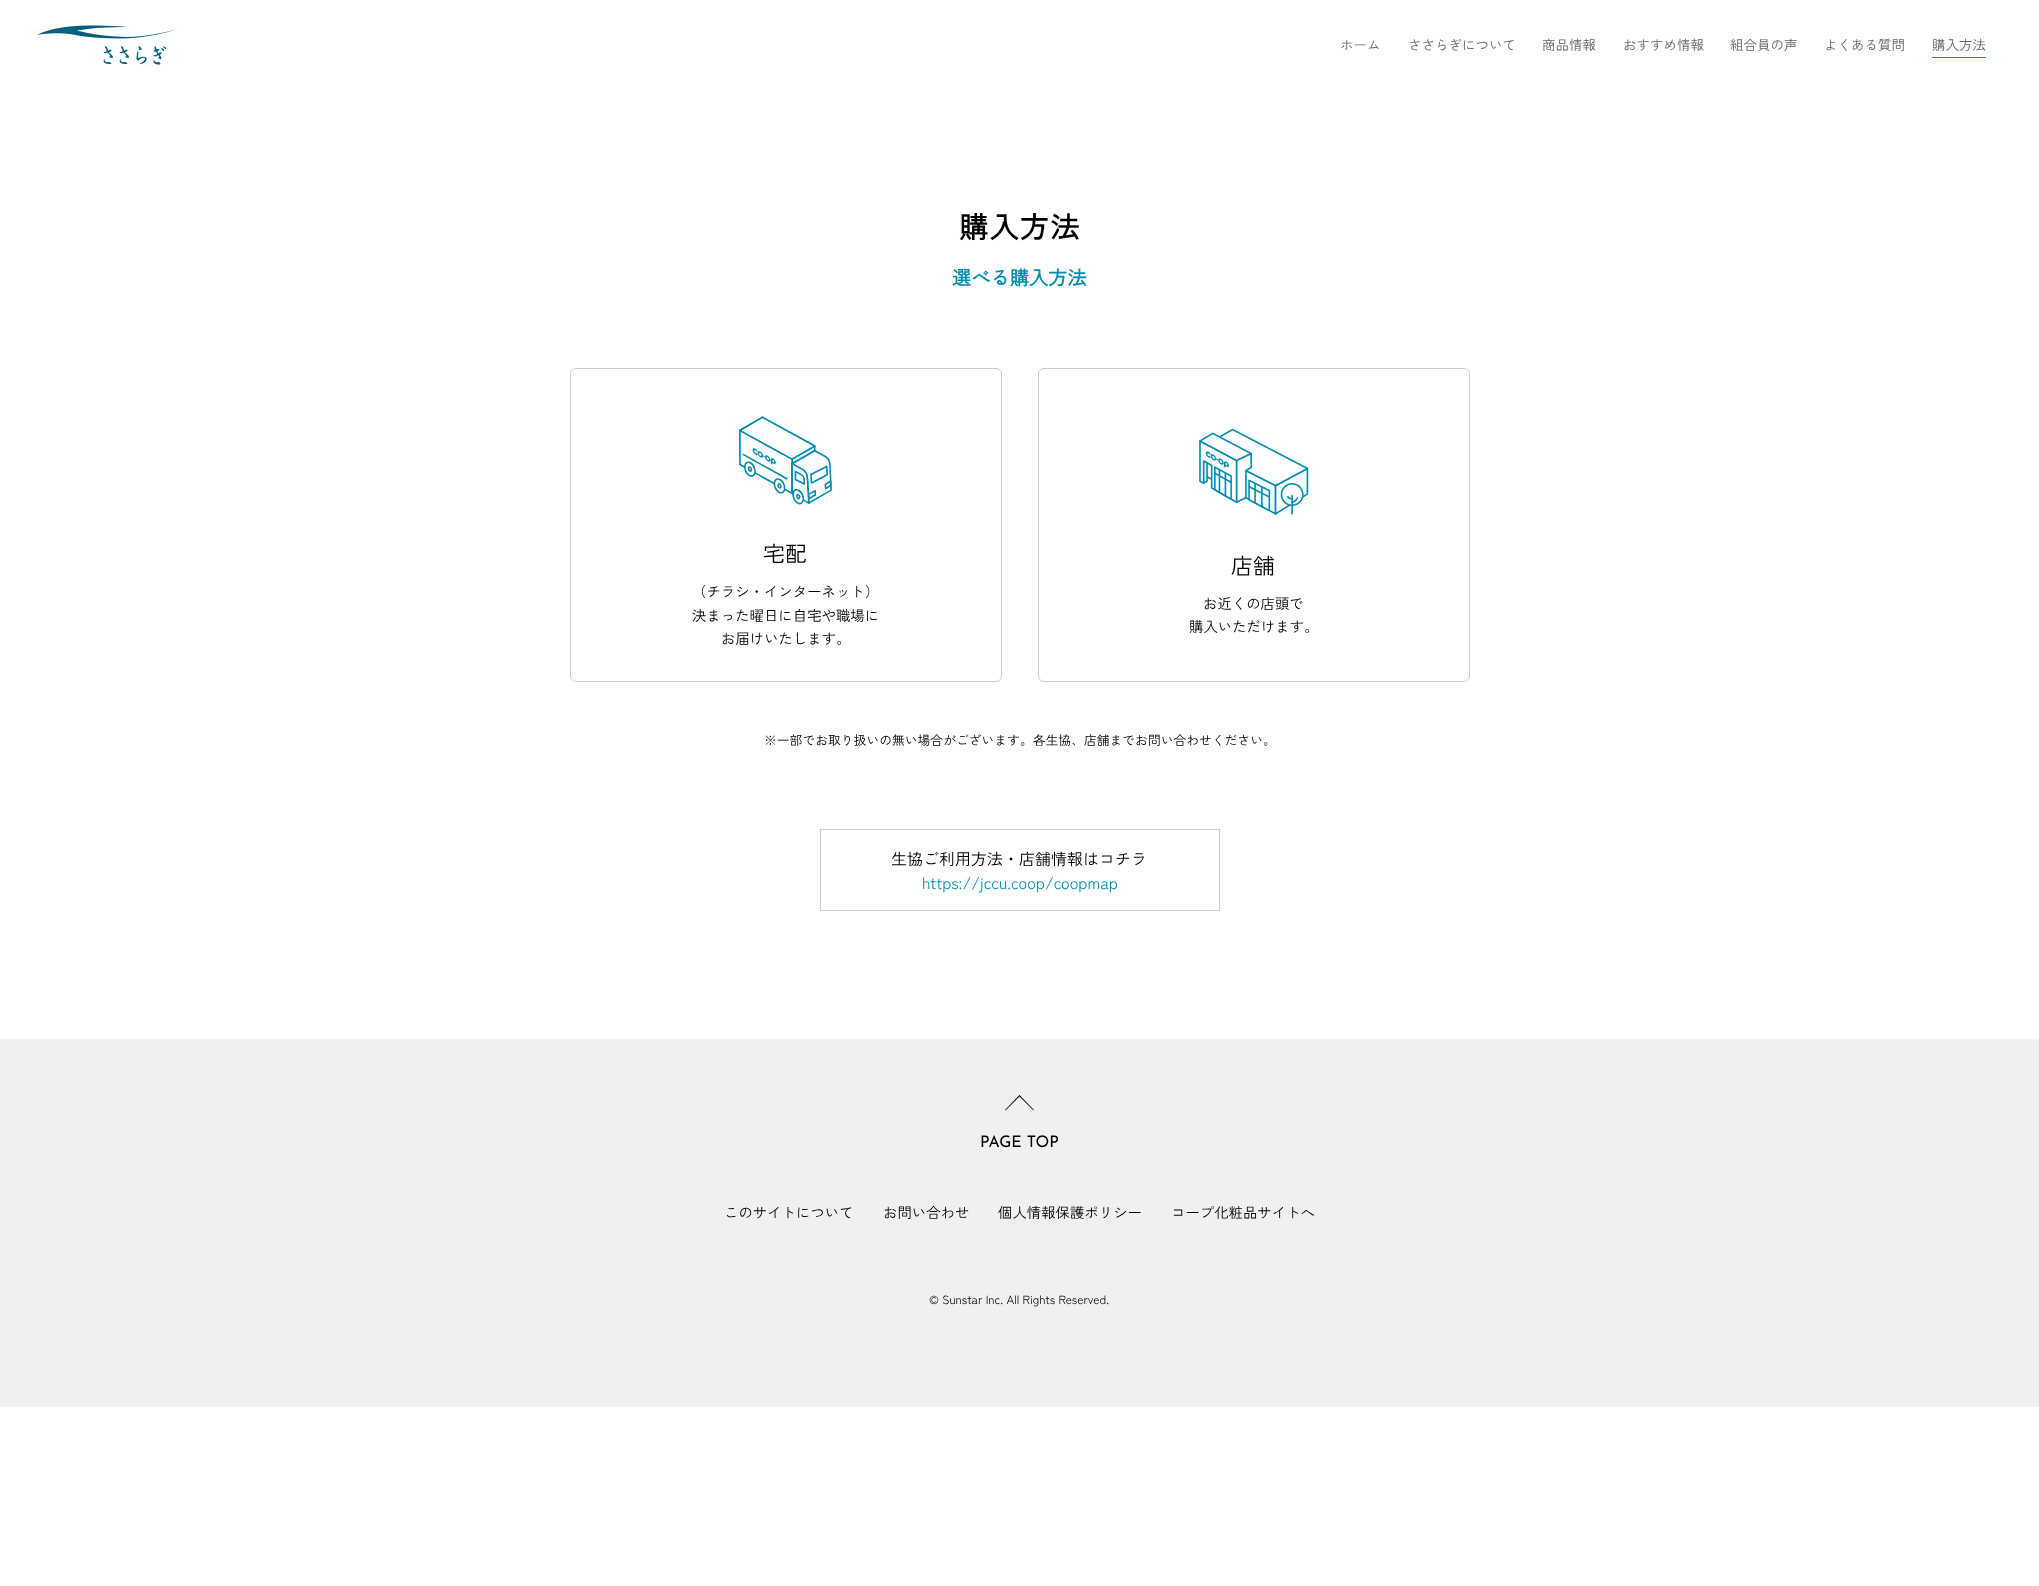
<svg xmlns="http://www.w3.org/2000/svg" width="2039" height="1586">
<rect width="100%" height="100%" fill="#fff"/>
<image x="37" y="25" width="140" height="40" href="media/1.png"/>
<text x="1340" y="50" style="font-family:Zen Kaku Gothic New;font-size:13.5px;fill:#646464">ホーム</text>
<text x="1408" y="50" style="font-family:Zen Kaku Gothic New;font-size:13.5px;fill:#646464">ささらぎについて</text>
<text x="1542" y="50" style="font-family:Zen Kaku Gothic New;font-size:13.5px;fill:#646464">商品情報</text>
<text x="1623" y="50" style="font-family:Zen Kaku Gothic New;font-size:13.5px;fill:#646464">おすすめ情報</text>
<text x="1730" y="50" style="font-family:Zen Kaku Gothic New;font-size:13.5px;fill:#646464">組合員の声</text>
<text x="1824" y="50" style="font-family:Zen Kaku Gothic New;font-size:13.5px;fill:#646464">よくある質問</text>
<text x="1932" y="50" style="font-family:Zen Kaku Gothic New;font-size:13.5px;fill:#646464">購入方法</text>
<rect x="1932" y="57" width="54" height="1" fill="#008caf"/>
<text x="959" y="238" style="font-family:Zen Kaku Gothic New;font-size:29px;font-weight:bold;letter-spacing:1.5px;fill:#000">購入方法</text>
<text x="952" y="285" style="font-family:Zen Kaku Gothic New;font-size:19.25px;font-weight:bold;fill:#008caf">選べる購入方法</text>
<rect x="570.5" y="368.5" width="431" height="313" rx="5.5" fill="none" stroke="#ccc"/>
<image x="739" y="416" width="93" height="89" href="media/2.png"/>
<text x="763" y="562" style="font-family:Zen Kaku Gothic New;font-size:22px;fill:#000">宅配</text>
<text x="692" y="597" style="font-family:Zen Kaku Gothic New;font-size:14.4px;fill:#000">（チラシ・インターネット）</text>
<text x="692" y="621" style="font-family:Zen Kaku Gothic New;font-size:14.4px;fill:#000">決まった曜日に自宅や職場に</text>
<text x="721" y="644" style="font-family:Zen Kaku Gothic New;font-size:14.4px;fill:#000">お届けいたします。</text>
<rect x="1038.5" y="368.5" width="431" height="313" rx="5.5" fill="none" stroke="#ccc"/>
<image x="1199" y="428" width="110" height="87" href="media/3.png"/>
<text x="1231" y="574" style="font-family:Zen Kaku Gothic New;font-size:22px;fill:#000">店舗</text>
<text x="1203" y="609" style="font-family:Zen Kaku Gothic New;font-size:14.4px;fill:#000">お近くの店頭で</text>
<text x="1189" y="632" style="font-family:Zen Kaku Gothic New;font-size:14.4px;fill:#000">購入いただけます。</text>
<text x="764" y="745" style="font-family:Zen Kaku Gothic New;font-size:12.8px;fill:#000">※一部でお取り扱いの無い場合がございます。各生協、店舗までお問い合わせください。</text>
<rect x="820.5" y="829.5" width="399" height="81" fill="none" stroke="#ccc"/>
<text x="891" y="865" style="font-family:Zen Kaku Gothic New;font-size:16px;fill:#000">生協ご利用方法・店舗情報はコチラ</text>
<text x="922" y="889" style="font-family:Zen Kaku Gothic New;font-size:16px;fill:#008caf">https://jccu.coop/coopmap</text>
<rect y="1039" width="2039" height="368" fill="#f0f0f0"/>
<path d="M1019.5 1095l14.5 15l-.5 .5l-14.5-14.5z" fill="#000"/>
<path d="M1019.5 1095l.5 1l-14.5 14.5l-.5-.5z" fill="#000"/>
<text x="980" y="1147" style="font-family:Josefin Sans;font-size:16px;fill:#000">PAGE TOP</text>
<text x="724" y="1218" style="font-family:Zen Kaku Gothic New;font-size:14.4px;fill:#000">このサイトについて</text>
<text x="883" y="1218" style="font-family:Zen Kaku Gothic New;font-size:14.4px;fill:#000">お問い合わせ</text>
<text x="998" y="1218" style="font-family:Zen Kaku Gothic New;font-size:14.4px;fill:#000">個人情報保護ポリシー</text>
<text x="1171" y="1218" style="font-family:Zen Kaku Gothic New;font-size:14.4px;fill:#000">コープ化粧品サイトへ</text>
<text x="929" y="1304" style="font-family:Zen Kaku Gothic New;font-size:11.8px;fill:#000">© Sunstar Inc. All Rights Reserved.</text>
</svg>
